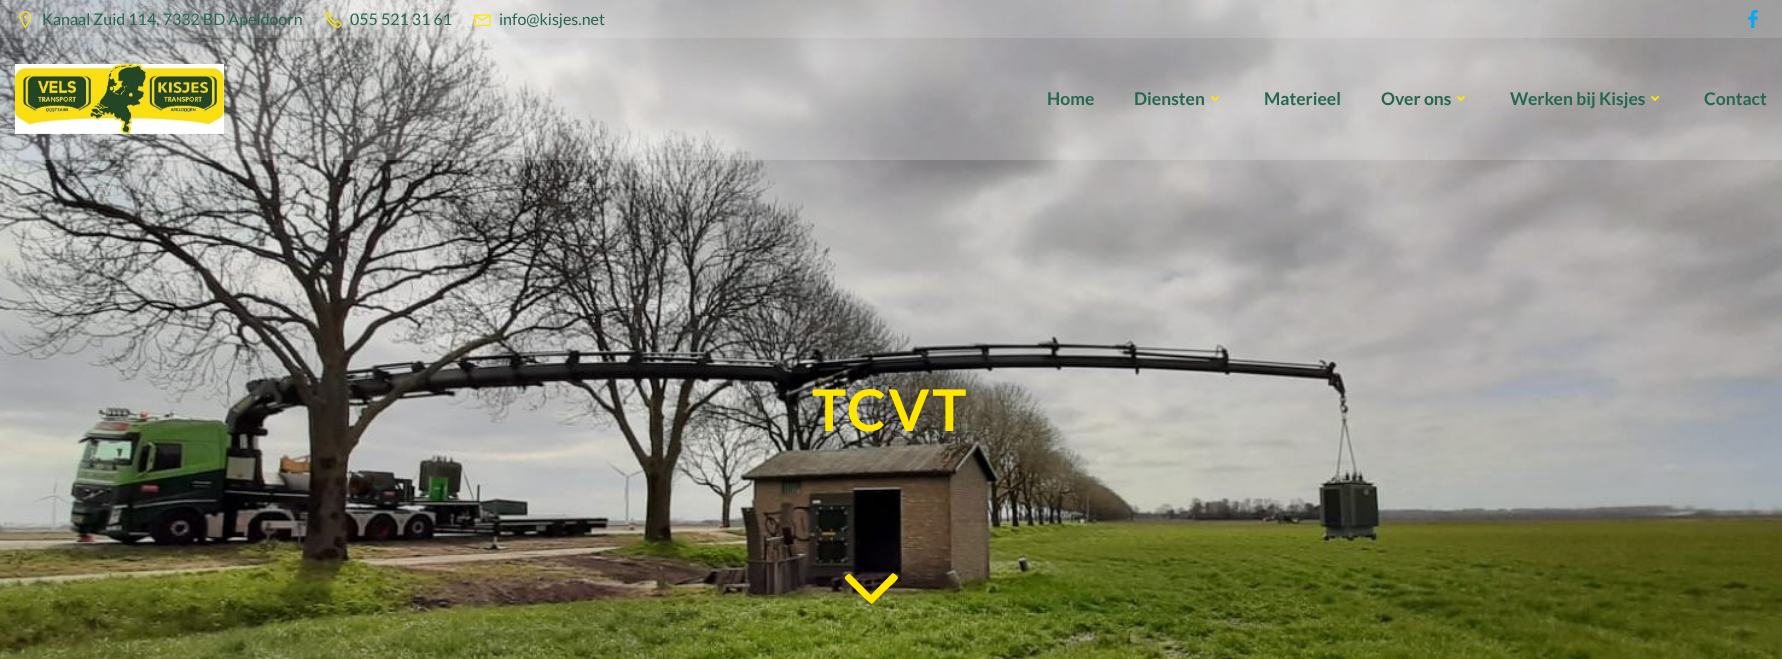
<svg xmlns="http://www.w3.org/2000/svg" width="1782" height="659">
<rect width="100%" height="100%" fill="#fff"/>
<image x="0" y="0" width="1782" height="659" href="media/9.png"/>
<rect width="1782" height="38" fill="#ffffff4d"/>
<image x="19" y="11" width="13" height="18" href="media/1.png"/>
<text x="42" y="25" style="font-family:Lato;font-size:16px;fill:#266751">Kanaal Zuid 114, 7332 BD Apeldoorn</text>
<image x="324" y="11" width="18" height="17" href="media/2.png"/>
<text x="350" y="25" style="font-family:Lato;font-size:16px;fill:#266751">055 521 31 61</text>
<image x="473" y="14" width="18" height="13" href="media/3.png"/>
<text x="499" y="25" style="font-family:Lato;font-size:16px;fill:#266751">info@kisjes.net</text>
<image x="1748" y="10" width="10" height="18" href="media/4.png"/>
<rect y="38" width="1782" height="122" fill="#ffffff33"/>
<image x="15" y="64" width="209" height="70" href="media/5.png"/>
<text x="1047" y="105" style="font-family:Lato;font-size:17.5px;font-weight:bold;fill:#266751">Home</text>
<text x="1134" y="105" style="font-family:Lato;font-size:17.5px;font-weight:bold;fill:#266751">Diensten</text>
<image x="1211" y="96" width="8" height="5" href="media/6.png"/>
<text x="1264" y="105" style="font-family:Lato;font-size:17.5px;font-weight:bold;fill:#266751">Materieel</text>
<text x="1381" y="105" style="font-family:Lato;font-size:17.5px;font-weight:bold;fill:#266751">Over ons</text>
<image x="1457" y="96" width="8" height="5" href="media/7.png"/>
<text x="1510" y="105" style="font-family:Lato;font-size:17.5px;font-weight:bold;fill:#266751">Werken bij Kisjes</text>
<image x="1651" y="96" width="8" height="5" href="media/8.png"/>
<text x="1704" y="105" style="font-family:Lato;font-size:17.5px;font-weight:bold;fill:#266751">Contact</text>
<text x="812" y="431" style="font-family:Lato;font-size:57.5px;font-weight:bold;letter-spacing:3px;fill:#ffe700">TCVT</text>
<path d="M898 578c0 2-11 11-13 13l-13 13c-2 0-24-22-27-25v-2c1-1 3-4 5-3l21 21c3-3 21-22 22-22c2 1 5 3 5 5z" fill="#ffe700"/>
</svg>
